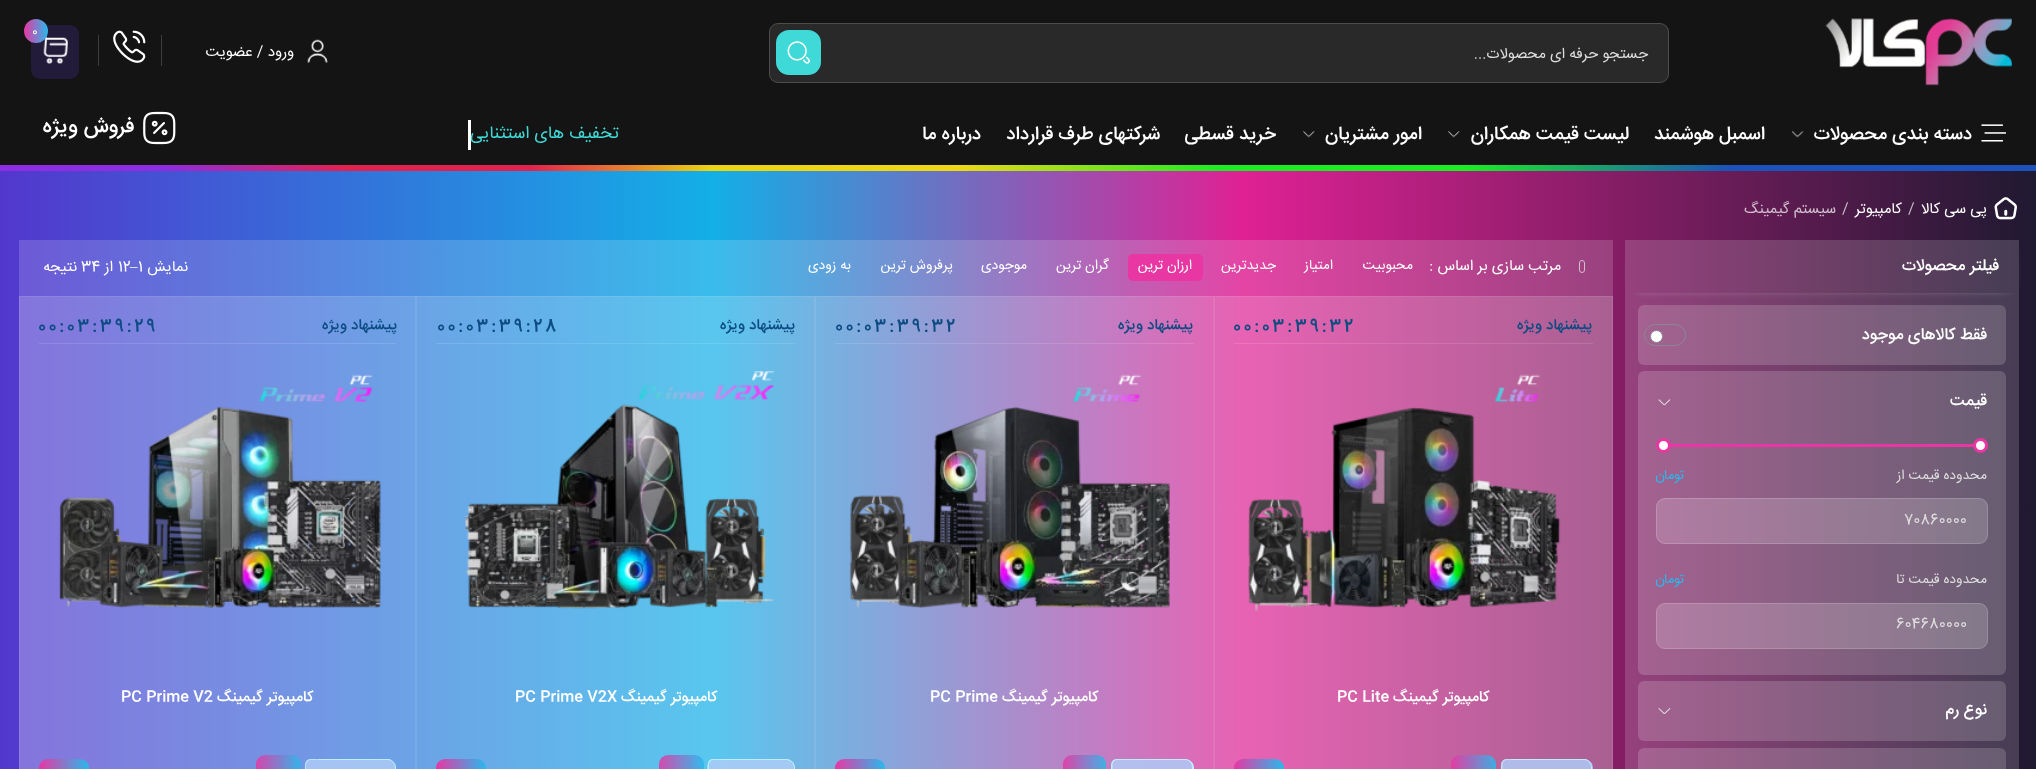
<svg xmlns="http://www.w3.org/2000/svg" width="2036" height="769">
<defs>
<linearGradient id="g1" gradientUnits="userSpaceOnUse" x1="0" y1="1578" x2="2036" y2="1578"><stop offset="0" stop-color="#5337cd"/><stop offset="0.35" stop-color="#13afe7"/><stop offset="0.61" stop-color="#df2194"/><stop offset="1" stop-color="#1f1931"/></linearGradient>
<linearGradient id="g2" gradientUnits="userSpaceOnUse" x1="0" y1="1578" x2="2036" y2="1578"><stop offset="0" stop-color="#6f57d5"/><stop offset="0.35" stop-color="#39bceb"/><stop offset="0.61" stop-color="#e445a5"/><stop offset="1" stop-color="#433e52"/></linearGradient>
<linearGradient id="g3" gradientUnits="userSpaceOnUse" x1="24" y1="31" x2="48" y2="31"><stop offset="0" stop-color="#e837a3"/><stop offset="1" stop-color="#29b9ed"/></linearGradient>
<linearGradient id="g4" gradientUnits="userSpaceOnUse" x1="0" y1="168" x2="2036" y2="168"><stop offset="0" stop-color="#8e2de2"/><stop offset="0.08" stop-color="#8e2de2"/><stop offset="0.17" stop-color="#e0224f"/><stop offset="0.26" stop-color="#e0224f"/><stop offset="0.35" stop-color="#ebd513"/><stop offset="0.47" stop-color="#eed816"/><stop offset="0.6" stop-color="#1bec23"/><stop offset="0.72" stop-color="#1bec23"/><stop offset="0.85" stop-color="#1b52bb"/></linearGradient>
<clipPath id="clip1"><path d="M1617 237h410v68h-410zm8 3h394v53h-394z" clip-rule="evenodd"/></clipPath>
<linearGradient id="g5" gradientUnits="userSpaceOnUse" x1="1451" y1="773" x2="1496" y2="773"><stop offset="0" stop-color="#e837a3" stop-opacity="0.85"/><stop offset="1" stop-color="#29b9ed" stop-opacity="0.85"/></linearGradient>
<linearGradient id="g6" gradientUnits="userSpaceOnUse" x1="1234" y1="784" x2="1284" y2="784"><stop offset="0" stop-color="#e837a3"/><stop offset="1" stop-color="#29b9ed"/></linearGradient>
<linearGradient id="g7" gradientUnits="userSpaceOnUse" x1="1063" y1="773" x2="1106" y2="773"><stop offset="0" stop-color="#e837a3" stop-opacity="0.85"/><stop offset="1" stop-color="#29b9ed" stop-opacity="0.85"/></linearGradient>
<linearGradient id="g8" gradientUnits="userSpaceOnUse" x1="835" y1="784" x2="885" y2="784"><stop offset="0" stop-color="#e837a3"/><stop offset="1" stop-color="#29b9ed"/></linearGradient>
<linearGradient id="g9" gradientUnits="userSpaceOnUse" x1="659" y1="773" x2="704" y2="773"><stop offset="0" stop-color="#e837a3" stop-opacity="0.85"/><stop offset="1" stop-color="#29b9ed" stop-opacity="0.85"/></linearGradient>
<linearGradient id="g10" gradientUnits="userSpaceOnUse" x1="436" y1="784" x2="486" y2="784"><stop offset="0" stop-color="#e837a3"/><stop offset="1" stop-color="#29b9ed"/></linearGradient>
<linearGradient id="g11" gradientUnits="userSpaceOnUse" x1="256" y1="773" x2="301" y2="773"><stop offset="0" stop-color="#e837a3" stop-opacity="0.85"/><stop offset="1" stop-color="#29b9ed" stop-opacity="0.85"/></linearGradient>
<linearGradient id="g12" gradientUnits="userSpaceOnUse" x1="39" y1="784" x2="89" y2="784"><stop offset="0" stop-color="#e837a3"/><stop offset="1" stop-color="#29b9ed"/></linearGradient>
</defs>
<rect width="100%" height="100%" fill="#fff"/>
<rect y="171" width="2036" height="598" fill="url(#g1)"/>
<rect x="19" y="296" width="1594" height="473" fill="url(#g2)"/>
<rect x="19" y="240" width="1594" height="56" fill="url(#g2)"/>
<rect width="2036" height="165" fill="#141414"/>
<image x="1825" y="18" width="187" height="68" href="media/1.png"/>
<rect x="769" y="23" width="900" height="60" rx="9" fill="#292929"/>
<rect x="769.5" y="23.5" width="899" height="59" rx="8.5" fill="none" stroke="#ffffff2b"/>
<text x="1648" y="58" style="font-family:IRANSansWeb;font-size:15px;direction:rtl;fill:#ddd">جستجو حرفه ای محصولات...</text>
<rect x="776" y="30" width="45" height="45" rx="13" fill="#3fd9d7"/>
<image x="787" y="41" width="23" height="23" href="media/2.png"/>
<image x="307" y="39" width="21" height="24" href="media/3.png"/>
<text x="294" y="56" style="font-family:IRANSansWeb;font-size:15px;direction:rtl;fill:#fff">ورود / عضویت</text>
<rect x="161" y="35" width="1" height="31" fill="#3c3c3c"/>
<image x="113" y="30" width="33" height="33" href="media/4.png"/>
<rect x="98" y="35" width="1" height="31" fill="#3c3c3c"/>
<rect x="31" y="25" width="48" height="54" rx="9" fill="#221b3a"/>
<image x="43" y="35" width="25" height="29" href="media/5.png"/>
<circle cx="36" cy="31" r="12" fill="url(#g3)"/>
<text x="32" y="35" style="font-family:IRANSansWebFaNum;font-size:12px;fill:#fff">0</text>
<image x="1981" y="124" width="25" height="18" href="media/6.png"/>
<text x="1972" y="139" style="font-family:IRANSansWeb;font-size:18.75px;font-weight:500;direction:rtl;fill:#fff">دسته بندی محصولات</text>
<image x="1792" y="131" width="12" height="7" href="media/7.png"/>
<text x="1765" y="139" style="font-family:IRANSansWeb;font-size:18.75px;font-weight:500;direction:rtl;fill:#fff">اسمبل هوشمند</text>
<text x="1629" y="139" style="font-family:IRANSansWeb;font-size:18.75px;font-weight:500;direction:rtl;fill:#fff">لیست قیمت همکاران</text>
<image x="1448" y="131" width="12" height="7" href="media/8.png"/>
<text x="1422" y="139" style="font-family:IRANSansWeb;font-size:18.75px;font-weight:500;direction:rtl;fill:#fff">امور مشتریان</text>
<image x="1303" y="131" width="12" height="7" href="media/8.png"/>
<text x="1276" y="139" style="font-family:IRANSansWeb;font-size:18.75px;font-weight:500;direction:rtl;fill:#fff">خرید قسطی</text>
<text x="1160" y="139" style="font-family:IRANSansWeb;font-size:18.75px;font-weight:500;direction:rtl;fill:#fff">شرکتهای طرف قرارداد</text>
<text x="981" y="139" style="font-family:IRANSansWeb;font-size:18.75px;font-weight:500;direction:rtl;fill:#fff">درباره ما</text>
<text x="619" y="138" style="font-family:IRANSansWebFaNum;font-size:17.5px;direction:rtl;fill:#3fd9d7">تخفیف های استثنایی</text>
<rect x="468" y="120" width="3" height="30" fill="#fff"/>
<image x="143" y="111" width="33" height="34" href="media/9.png"/>
<text x="134" y="132" style="font-family:IRANSansWeb;font-size:21.25px;font-weight:500;direction:rtl;fill:#fff">فروش ویژه</text>
<rect y="165" width="2036" height="6" fill="url(#g4)"/>
<image x="1994" y="197" width="23" height="23" href="media/10.png"/>
<text x="1987" y="213" style="font-family:IRANSansWeb;font-size:15px;direction:rtl;fill:#fff">پی سی کالا</text>
<text x="1908" y="213" style="font-family:IRANSansWeb;font-size:15px;fill:#c9bfca">/</text>
<text x="1902" y="213" style="font-family:IRANSansWeb;font-size:15px;direction:rtl;fill:#fff">کامپیوتر</text>
<text x="1842" y="213" style="font-family:IRANSansWeb;font-size:15px;fill:#c9bfca">/</text>
<text x="1836" y="213" style="font-family:IRANSansWeb;font-size:15px;direction:rtl;fill:#d1bfce">سیستم گیمینگ</text>
<rect x="1625" y="293" width="394" height="476" fill="#ffffff29"/>
<g clip-path="url(#clip1)">
<rect x="1636" y="256" width="372" height="30" fill="#f5f5f5" filter="blur(6px)"/>
</g>
<rect x="1625" y="240" width="394" height="53" fill="#ffffff29"/>
<text x="1999" y="270" style="font-family:IRANSansWeb;font-size:16.25px;font-weight:500;direction:rtl;fill:#fff">فیلتر محصولات</text>
<rect x="1638" y="305" width="368" height="60" rx="6" fill="#ffffff2b"/>
<text x="1987" y="339" style="font-family:IRANSansWebFaNum;font-size:16.25px;font-weight:500;direction:rtl;fill:#fff">فقط کالاهای موجود</text>
<rect x="1644.5" y="324.5" width="41" height="21" rx="10.5" fill="none" stroke="#878990"/>
<circle cx="1656.5" cy="336.5" r="6" fill="#fff" stroke="#878990"/>
<rect x="1638" y="371" width="368" height="304" rx="6" fill="#ffffff2b"/>
<text x="1987" y="405" style="font-family:IRANSansWebFaNum;font-size:16.25px;font-weight:500;direction:rtl;fill:#fff">قیمت</text>
<image x="1658" y="399" width="13" height="7" href="media/11.png"/>
<rect x="1664" y="444" width="316" height="3" fill="#e837a3"/>
<circle cx="1980.5" cy="445.5" r="6" fill="#fff" stroke="#e837a3" stroke-width="3"/>
<circle cx="1663.5" cy="445.5" r="6" fill="#fff" stroke="#e837a3" stroke-width="3"/>
<text x="1987" y="479" style="font-family:IRANSansWebFaNum;font-size:13.75px;direction:rtl;fill:#ddd">محدوده قیمت از</text>
<text x="1685" y="479" style="font-family:IRANSansWebFaNum;font-size:13.75px;direction:rtl;fill:#29b9ed">تومان</text>
<rect x="1656" y="498" width="332" height="46" rx="9" fill="#ffffff2b"/>
<rect x="1656.5" y="498.5" width="331" height="45" rx="8.5" fill="none" stroke="#ffffff2b"/>
<text x="1904" y="524" style="font-family:IRANSansWebFaNum;font-size:15px;fill:#ddd">70860000</text>
<text x="1987" y="583" style="font-family:IRANSansWebFaNum;font-size:13.75px;direction:rtl;fill:#ddd">محدوده قیمت تا</text>
<text x="1685" y="583" style="font-family:IRANSansWebFaNum;font-size:13.75px;direction:rtl;fill:#29b9ed">تومان</text>
<rect x="1656" y="603" width="332" height="46" rx="9" fill="#ffffff2b"/>
<rect x="1656.5" y="603.5" width="331" height="45" rx="8.5" fill="none" stroke="#ffffff2b"/>
<text x="1896" y="628" style="font-family:IRANSansWebFaNum;font-size:15px;fill:#ddd">604680000</text>
<rect x="1638" y="681" width="368" height="60" rx="6" fill="#ffffff2b"/>
<text x="1987" y="714" style="font-family:IRANSansWebFaNum;font-size:16.25px;font-weight:500;direction:rtl;fill:#fff">نوع رم</text>
<image x="1658" y="708" width="13" height="6" href="media/12.png"/>
<rect x="1638" y="748" width="368" height="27" rx="6" fill="#ffffff2b"/>
<rect x="1579.5" y="260.5" width="5" height="12" rx="2.5" fill="none" stroke="#d1bfcb"/>
<text x="1561" y="270" style="font-family:IRANSansWebFaNum;font-size:15px;direction:rtl;fill:#fff">مرتب سازی بر اساس :</text>
<text x="1413" y="269" style="font-family:IRANSansWebFaNum;font-size:13.75px;direction:rtl;fill:#fff">محبوبیت</text>
<text x="1333" y="269" style="font-family:IRANSansWebFaNum;font-size:13.75px;direction:rtl;fill:#fff">امتیاز</text>
<text x="1276" y="269" style="font-family:IRANSansWebFaNum;font-size:13.75px;direction:rtl;fill:#fff">جدیدترین</text>
<rect x="1128" y="254" width="75" height="27" rx="5" fill="#e837a3"/>
<text x="1192" y="269" style="font-family:IRANSansWebFaNum;font-size:13.75px;direction:rtl;fill:#fff">ارزان ترین</text>
<text x="1109" y="269" style="font-family:IRANSansWebFaNum;font-size:13.75px;direction:rtl;fill:#fff">گران ترین</text>
<text x="1027" y="269" style="font-family:IRANSansWebFaNum;font-size:13.75px;direction:rtl;fill:#fff">موجودی</text>
<text x="953" y="269" style="font-family:IRANSansWebFaNum;font-size:13.75px;direction:rtl;fill:#fff">پرفروش ترین</text>
<text x="851" y="269" style="font-family:IRANSansWebFaNum;font-size:13.75px;direction:rtl;fill:#fff">به زودی</text>
<text x="188" y="271" style="font-family:IRANSansWebFaNum;font-size:15px;direction:rtl;fill:#fff">نمایش</text>
<text x="130" y="271" style="font-family:Liberation Serif;font-size:15px;fill:#fff">–</text>
<text x="138" y="271" style="font-family:IRANSansWebFaNum;font-size:15px;fill:#fff">1</text>
<text x="118" y="271" style="font-family:IRANSansWebFaNum;font-size:15px;fill:#fff">12</text>
<text x="113" y="271" style="font-family:IRANSansWebFaNum;font-size:15px;direction:rtl;fill:#fff">از</text>
<text x="81" y="271" style="font-family:IRANSansWebFaNum;font-size:15px;fill:#fff">34</text>
<text x="77" y="271" style="font-family:IRANSansWebFaNum;font-size:15px;direction:rtl;fill:#fff">نتیجه</text>
<rect x="1214" y="296" width="399" height="473" fill="#ffffff29"/>
<rect x="1214.5" y="296.5" width="398" height="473" fill="none" stroke="#ffffff17"/>
<rect x="1234" y="343" width="359" height="1" fill="#ffffff21"/>
<text x="1592" y="329" style="font-family:IRANSansWeb;font-size:15px;font-weight:500;direction:rtl;fill:#0c4c82">پیشنهاد ویژه</text>
<text x="1233" y="331" style="font-family:IRANSansWebFaNum;font-size:17.5px;font-weight:500;letter-spacing:2.5px;fill:#0c4c82">00:03:39:32</text>
<image x="1248" y="374" width="313" height="238" href="media/13.png"/>
<text x="1489" y="701" style="font-family:IRANSansWeb;font-size:15px;font-weight:500;direction:rtl;fill:#fff">کامپیوتر گیمینگ</text>
<text x="1337" y="701" style="font-family:IRANSansWeb;font-size:15px;font-weight:500;fill:#fff">PC Lite</text>
<path d="M1507 759h6v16h-6c-3.5 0-6-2.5-6-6v-4c0-3.5 2.5-6 6-6z" fill="#b0bbe9"/>
<path d="M1507 759h5.5v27h-7c-6-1-4.5-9-4.5-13.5c0-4.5-1.5-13.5 6-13.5zm0 1h5.5v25h-5.5c-2.5 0-4.5-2-4.5-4.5v-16c0-2.5 2-4.5 4.5-4.5z" fill="#bfe0f0" fill-rule="evenodd"/>
<rect x="1451" y="755" width="45" height="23" rx="9" fill="url(#g5)"/>
<path d="M1513 759h71c5 0 9 4 9 9v1c0 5-4 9-9 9h-71z" fill="#aecbf7d9"/>
<path d="M1512 759h72c5 0 8 4 8 9v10c0 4-3 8-8 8h-72zm0 1h72c4 0 7 3 7 8v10c0 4-3 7-7 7h-72z" fill="#c0f6ffd9" fill-rule="evenodd"/>
<rect x="1234" y="759" width="50" height="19" rx="9" fill="url(#g6)"/>
<rect x="815" y="296" width="399" height="473" fill="#ffffff29"/>
<rect x="815.5" y="296.5" width="398" height="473" fill="none" stroke="#ffffff17"/>
<rect x="835" y="343" width="359" height="1" fill="#ffffff21"/>
<text x="1193" y="329" style="font-family:IRANSansWeb;font-size:15px;font-weight:500;direction:rtl;fill:#0c4c82">پیشنهاد ویژه</text>
<text x="835" y="331" style="font-family:IRANSansWebFaNum;font-size:17.5px;font-weight:500;letter-spacing:2.5px;fill:#0c4c82">00:03:39:32</text>
<image x="849" y="374" width="321" height="234" href="media/14.png"/>
<text x="1098" y="701" style="font-family:IRANSansWeb;font-size:15px;font-weight:500;direction:rtl;fill:#fff">کامپیوتر گیمینگ</text>
<text x="930" y="701" style="font-family:IRANSansWeb;font-size:15px;font-weight:500;fill:#fff">PC Prime</text>
<path d="M1117 759h6v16h-6c-3.5 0-6-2.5-6-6v-4c0-3.5 2.5-6 6-6z" fill="#aecbf7d9"/>
<path d="M1117 759h5.5v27h-7c-6-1-4.5-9-4.5-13.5c0-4.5-1.5-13.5 6-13.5zm0 1h5.5v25h-5.5c-2.5 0-4.5-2-4.5-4.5v-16c0-2.5 2-4.5 4.5-4.5z" fill="#c0f6ffd9" fill-rule="evenodd"/>
<rect x="1063" y="755" width="43" height="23" rx="9" fill="url(#g7)"/>
<path d="M1123 759h62c5 0 9 4 9 9v1c0 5-4 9-9 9h-62z" fill="#aecbf7d9"/>
<path d="M1122 759h63c5 0 9 4 9 9v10c0 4-4 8-9 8h-63zm0 1h63c4 0 7 3 7 8v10c0 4-3 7-7 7h-63z" fill="#c0f6ffd9" fill-rule="evenodd"/>
<rect x="835" y="759" width="50" height="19" rx="9" fill="url(#g8)"/>
<rect x="416" y="296" width="399" height="473" fill="#ffffff29"/>
<rect x="416.5" y="296.5" width="398" height="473" fill="none" stroke="#ffffff17"/>
<rect x="436" y="343" width="359" height="1" fill="#ffffff21"/>
<text x="795" y="329" style="font-family:IRANSansWeb;font-size:15px;font-weight:500;direction:rtl;fill:#0c4c82">پیشنهاد ویژه</text>
<text x="437" y="331" style="font-family:IRANSansWebFaNum;font-size:17.5px;font-weight:500;letter-spacing:2.5px;fill:#0c4c82">00:03:39:28</text>
<image x="465" y="370" width="310" height="239" href="media/15.png"/>
<text x="717" y="701" style="font-family:IRANSansWeb;font-size:15px;font-weight:500;direction:rtl;fill:#fff">کامپیوتر گیمینگ</text>
<text x="515" y="701" style="font-family:IRANSansWeb;font-size:15px;font-weight:500;fill:#fff">PC Prime V2X</text>
<path d="M713.5 759h5.5v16h-5.5c-3 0-5.5-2.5-5.5-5.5v-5c0-3 2.5-5.5 5.5-5.5z" fill="#a1caf6"/>
<path d="M713 759h6v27h-7c-6-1-4.5-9-4.5-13.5c0-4.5-1.5-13.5 5.5-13.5zm0 1h6v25h-6c-2.5 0-4-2-4-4.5v-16c0-2.5 1.5-4.5 4-4.5z" fill="#b1effc" fill-rule="evenodd"/>
<rect x="659" y="755" width="45" height="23" rx="9" fill="url(#g9)"/>
<path d="M719 759h67c5 0 9 4 9 9v1c0 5-4 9-9 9h-67z" fill="#aecbf7d9"/>
<path d="M719 759h67c5 0 9 4 9 9v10c0 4-4 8-9 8h-67zm0 1h67c4 0 8 3 8 8v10c0 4-4 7-8 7h-67z" fill="#c0f6ffd9" fill-rule="evenodd"/>
<rect x="436" y="759" width="50" height="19" rx="9" fill="url(#g10)"/>
<rect x="19" y="296" width="397" height="473" fill="#ffffff29"/>
<rect x="19.5" y="296.5" width="396" height="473" fill="none" stroke="#ffffff17"/>
<rect x="39" y="343" width="357" height="1" fill="#ffffff21"/>
<text x="397" y="329" style="font-family:IRANSansWeb;font-size:15px;font-weight:500;direction:rtl;fill:#0c4c82">پیشنهاد ویژه</text>
<text x="38" y="331" style="font-family:IRANSansWebFaNum;font-size:17.5px;font-weight:500;letter-spacing:2.5px;fill:#0c4c82">00:03:39:29</text>
<image x="59" y="374" width="322" height="234" href="media/16.png"/>
<text x="313" y="701" style="font-family:IRANSansWeb;font-size:15px;font-weight:500;direction:rtl;fill:#fff">کامپیوتر گیمینگ</text>
<text x="121" y="701" style="font-family:IRANSansWeb;font-size:15px;font-weight:500;fill:#fff">PC Prime V2</text>
<path d="M311.5 759h6.5v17h-6.5c-3.5 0-6.5-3-6.5-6.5v-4c0-3.5 3-6.5 6.5-6.5z" fill="#a5c3f4"/>
<path d="M311 759h6.5v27h-7.5c-6.5-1-5-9-5-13.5c0-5-1.5-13.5 6-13.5zm0 1h6.5v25c-12 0-11.5 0-11.5-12.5c0-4-1.5-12.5 5-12.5z" fill="#b4e8fb" fill-rule="evenodd"/>
<rect x="256" y="755" width="45" height="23" rx="9" fill="url(#g11)"/>
<path d="M318 759h69c5 0 9 4 9 9v1c0 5-4 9-9 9h-69z" fill="#aecbf7d9"/>
<path d="M318 759h70c4 0 8 4 8 9v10c0 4-4 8-8 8h-70zm0 1h70c4 0 7 3 7 8v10c0 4-3 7-7 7h-70z" fill="#c0f6ffd9" fill-rule="evenodd"/>
<rect x="39" y="759" width="50" height="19" rx="9" fill="url(#g12)"/>
</svg>
